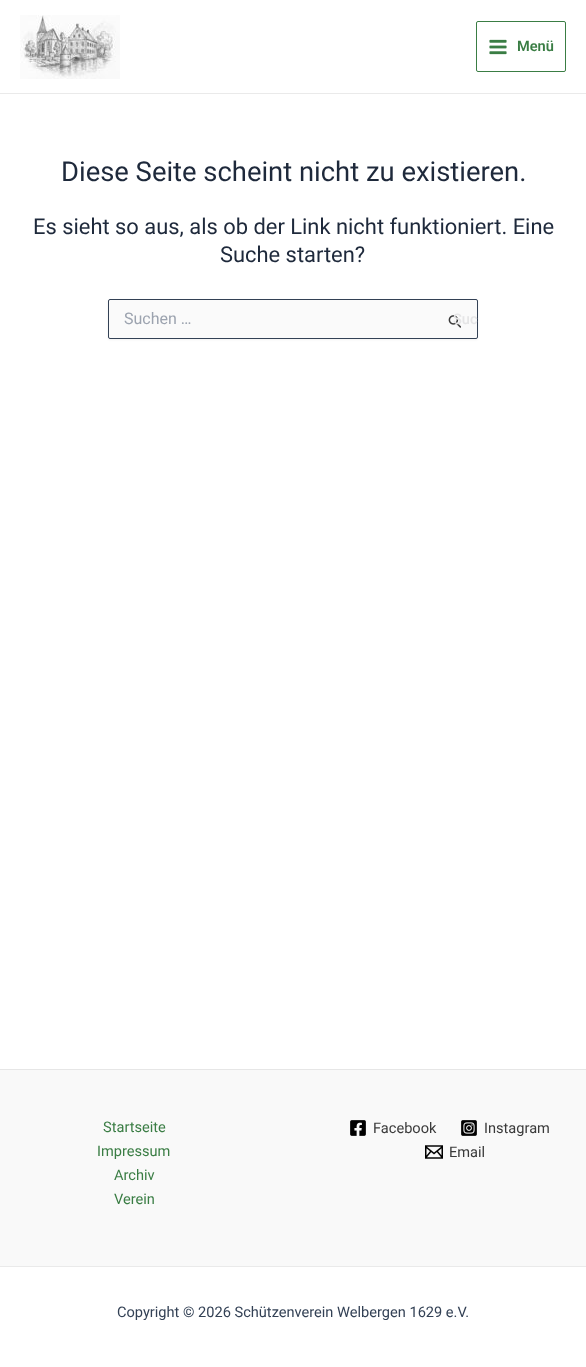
<svg xmlns="http://www.w3.org/2000/svg" width="586" height="1367">
<rect width="100%" height="100%" fill="#fff"/>
<rect y="93" width="586" height="1" fill="#eaeaea"/>
<image x="20" y="15" width="100" height="64" href="media/1.png"/>
<rect x="476.5" y="21.5" width="89" height="50" rx="1.5" fill="none" stroke="#3a7d44"/>
<image x="489" y="39" width="18" height="16" href="media/2.png"/>
<text x="517" y="51" style="font-family:Roboto;font-size:14.6px;font-weight:600;fill:#3a7d44">Menü</text>
<text x="61" y="181" style="font-family:Roboto;font-size:27.4px;fill:#1e293b">Diese Seite scheint nicht zu existieren.</text>
<text x="33" y="234" style="font-family:Roboto;font-size:21.9px;fill:#1e293b">Es sieht so aus, als ob der Link nicht funktioniert. Eine</text>
<text x="220" y="262" style="font-family:Roboto;font-size:21.9px;fill:#1e293b">Suche starten?</text>
<rect x="108" y="300" width="370" height="40" rx="2" fill="#0000000d" filter="blur(1px)"/>
<rect x="108.5" y="299.5" width="369" height="39" rx="1.5" fill="#fafafa" stroke="#334155"/>
<text x="124" y="324" style="font-family:Roboto;font-size:16px;fill:#9ca3af">Suchen …</text>
<image x="448" y="315" width="13" height="13" href="media/3.png"/>
<text x="453" y="324" style="font-family:Roboto;font-size:14.6px;font-weight:500;fill:#e5e5e6">Suc</text>
<rect y="1070" width="586" height="196" fill="#f9f9f9"/>
<rect y="1069" width="586" height="1" fill="#e6e6e6"/>
<text x="103" y="1132" style="font-family:Roboto;font-size:14.6px;fill:#3a7d44">Startseite</text>
<text x="97" y="1156" style="font-family:Roboto;font-size:14.6px;fill:#3a7d44">Impressum</text>
<text x="114" y="1180" style="font-family:Roboto;font-size:14.6px;fill:#3a7d44">Archiv</text>
<text x="114" y="1204" style="font-family:Roboto;font-size:14.6px;fill:#3a7d44">Verein</text>
<image x="350" y="1120" width="16" height="16" href="media/4.png"/>
<text x="373" y="1133" style="font-family:Roboto;font-size:14.6px;fill:#3a3a3a">Facebook</text>
<image x="461" y="1120" width="16" height="16" href="media/5.png"/>
<text x="484" y="1133" style="font-family:Roboto;font-size:14.6px;fill:#3a3a3a">Instagram</text>
<image x="425" y="1145" width="18" height="14" href="media/6.png"/>
<text x="449" y="1157" style="font-family:Roboto;font-size:14.6px;fill:#3a3a3a">Email</text>
<rect y="1266" width="586" height="1" fill="#eaeaea"/>
<text x="117" y="1317" style="font-family:Roboto;font-size:14.6px;fill:#334155">Copyright © 2026 Schützenverein Welbergen 1629 e.V.</text>
</svg>
